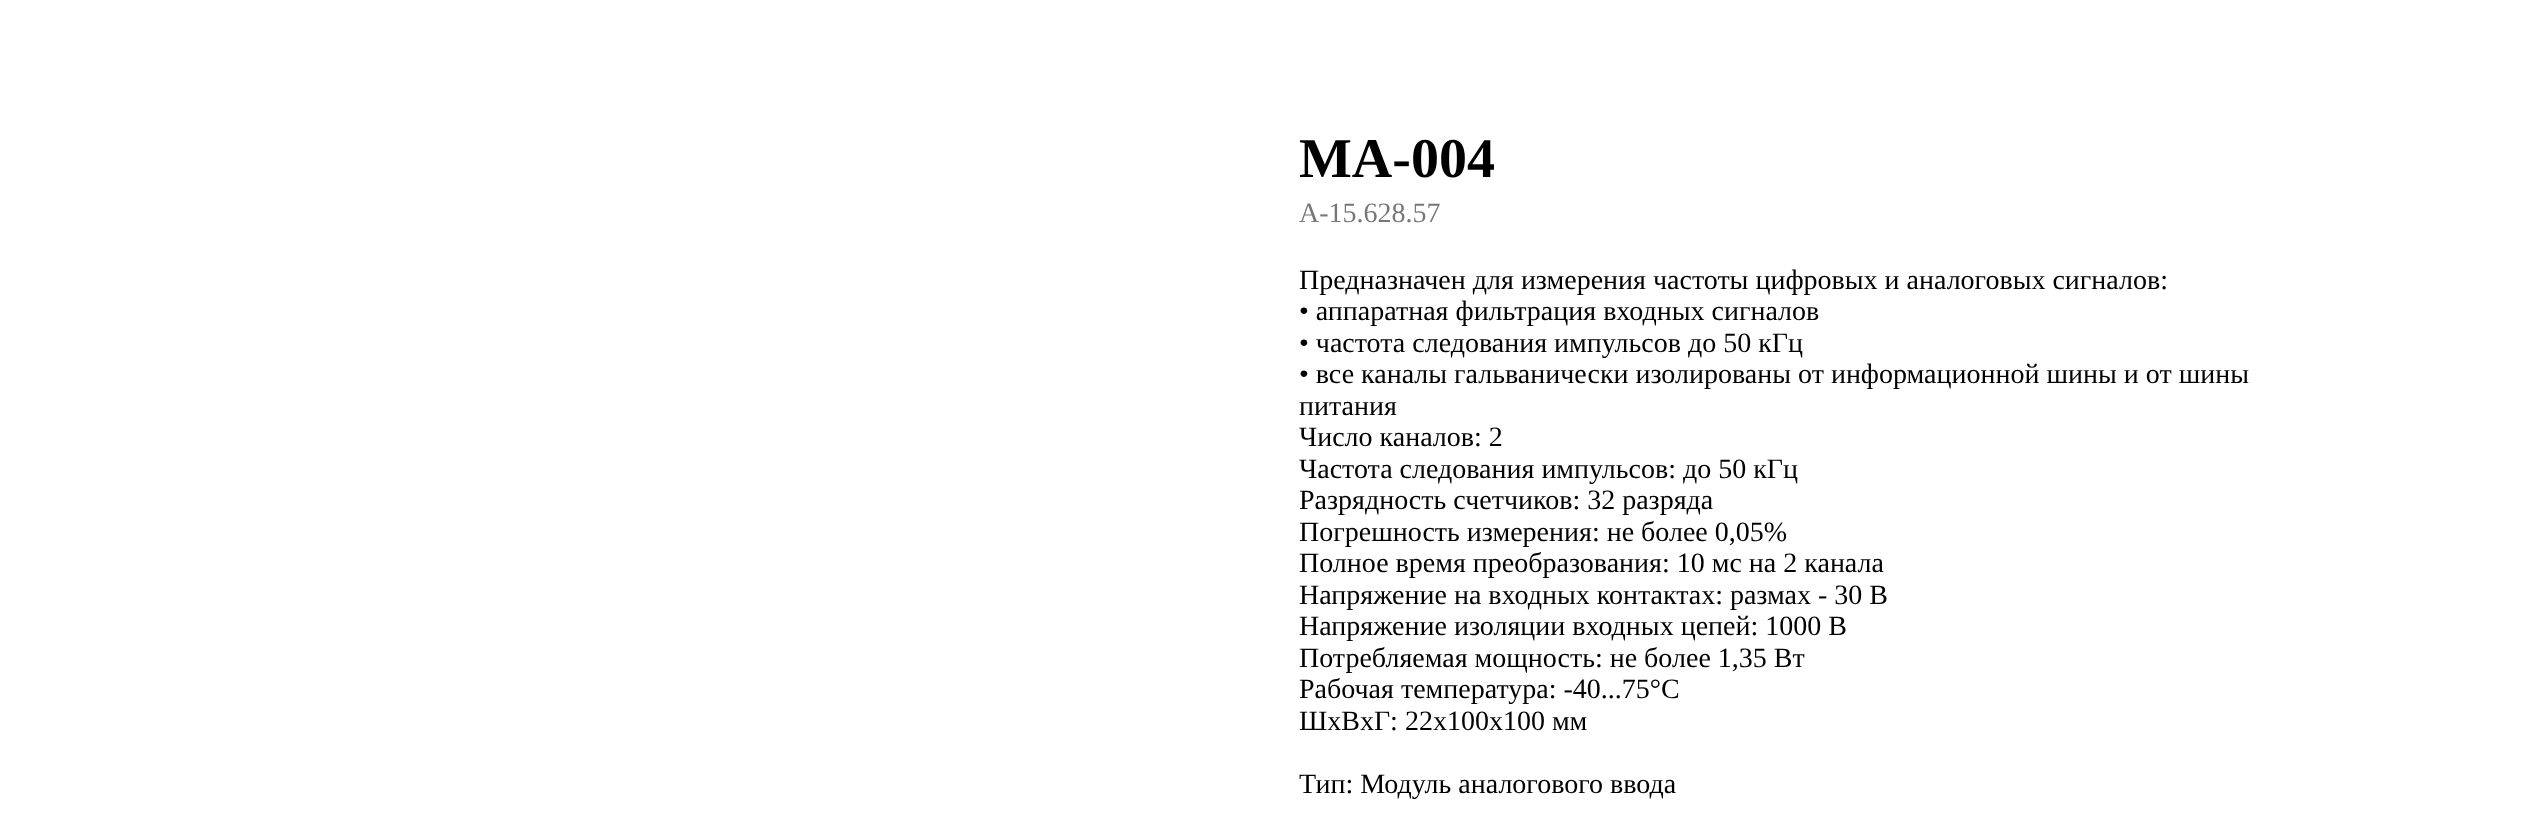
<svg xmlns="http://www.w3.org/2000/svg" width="2528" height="824">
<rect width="100%" height="100%" fill="#fff"/>
<text x="1299" y="177" style="font-family:Liberation Serif;font-size:56px;font-weight:bold;fill:#000">MA-004</text>
<text x="1299" y="222" style="font-family:Liberation Serif;font-size:28px;fill:#777">А-15.628.57</text>
<text x="1299" y="289" style="font-family:Liberation Serif;font-size:28px;fill:#000">Предназначен для измерения частоты цифровых и аналоговых сигналов:</text>
<text x="1299" y="320" style="font-family:Liberation Serif;font-size:28px;fill:#000">• аппаратная фильтрация входных сигналов</text>
<text x="1299" y="352" style="font-family:Liberation Serif;font-size:28px;fill:#000">• частота следования импульсов до 50 кГц</text>
<text x="1299" y="383" style="font-family:Liberation Serif;font-size:28px;fill:#000">• все каналы гальванически изолированы от информационной шины и от шины</text>
<text x="1299" y="415" style="font-family:Liberation Serif;font-size:28px;fill:#000">питания</text>
<text x="1299" y="446" style="font-family:Liberation Serif;font-size:28px;fill:#000">Число каналов: 2</text>
<text x="1299" y="478" style="font-family:Liberation Serif;font-size:28px;fill:#000">Частота следования импульсов: до 50 кГц</text>
<text x="1299" y="509" style="font-family:Liberation Serif;font-size:28px;fill:#000">Разрядность счетчиков: 32 разряда</text>
<text x="1299" y="541" style="font-family:Liberation Serif;font-size:28px;fill:#000">Погрешность измерения: не более 0,05%</text>
<text x="1299" y="572" style="font-family:Liberation Serif;font-size:28px;fill:#000">Полное время преобразования: 10 мс на 2 канала</text>
<text x="1299" y="604" style="font-family:Liberation Serif;font-size:28px;fill:#000">Напряжение на входных контактах: размах - 30 В</text>
<text x="1299" y="635" style="font-family:Liberation Serif;font-size:28px;fill:#000">Напряжение изоляции входных цепей: 1000 В</text>
<text x="1299" y="667" style="font-family:Liberation Serif;font-size:28px;fill:#000">Потребляемая мощность: не более 1,35 Вт</text>
<text x="1299" y="698" style="font-family:Liberation Serif;font-size:28px;fill:#000">Рабочая температура: -40...75°С</text>
<text x="1299" y="730" style="font-family:Liberation Serif;font-size:28px;fill:#000">ШxВxГ: 22x100x100 мм</text>
<text x="1299" y="793" style="font-family:Liberation Serif;font-size:28px;fill:#000">Тип: Модуль аналогового ввода</text>
</svg>
